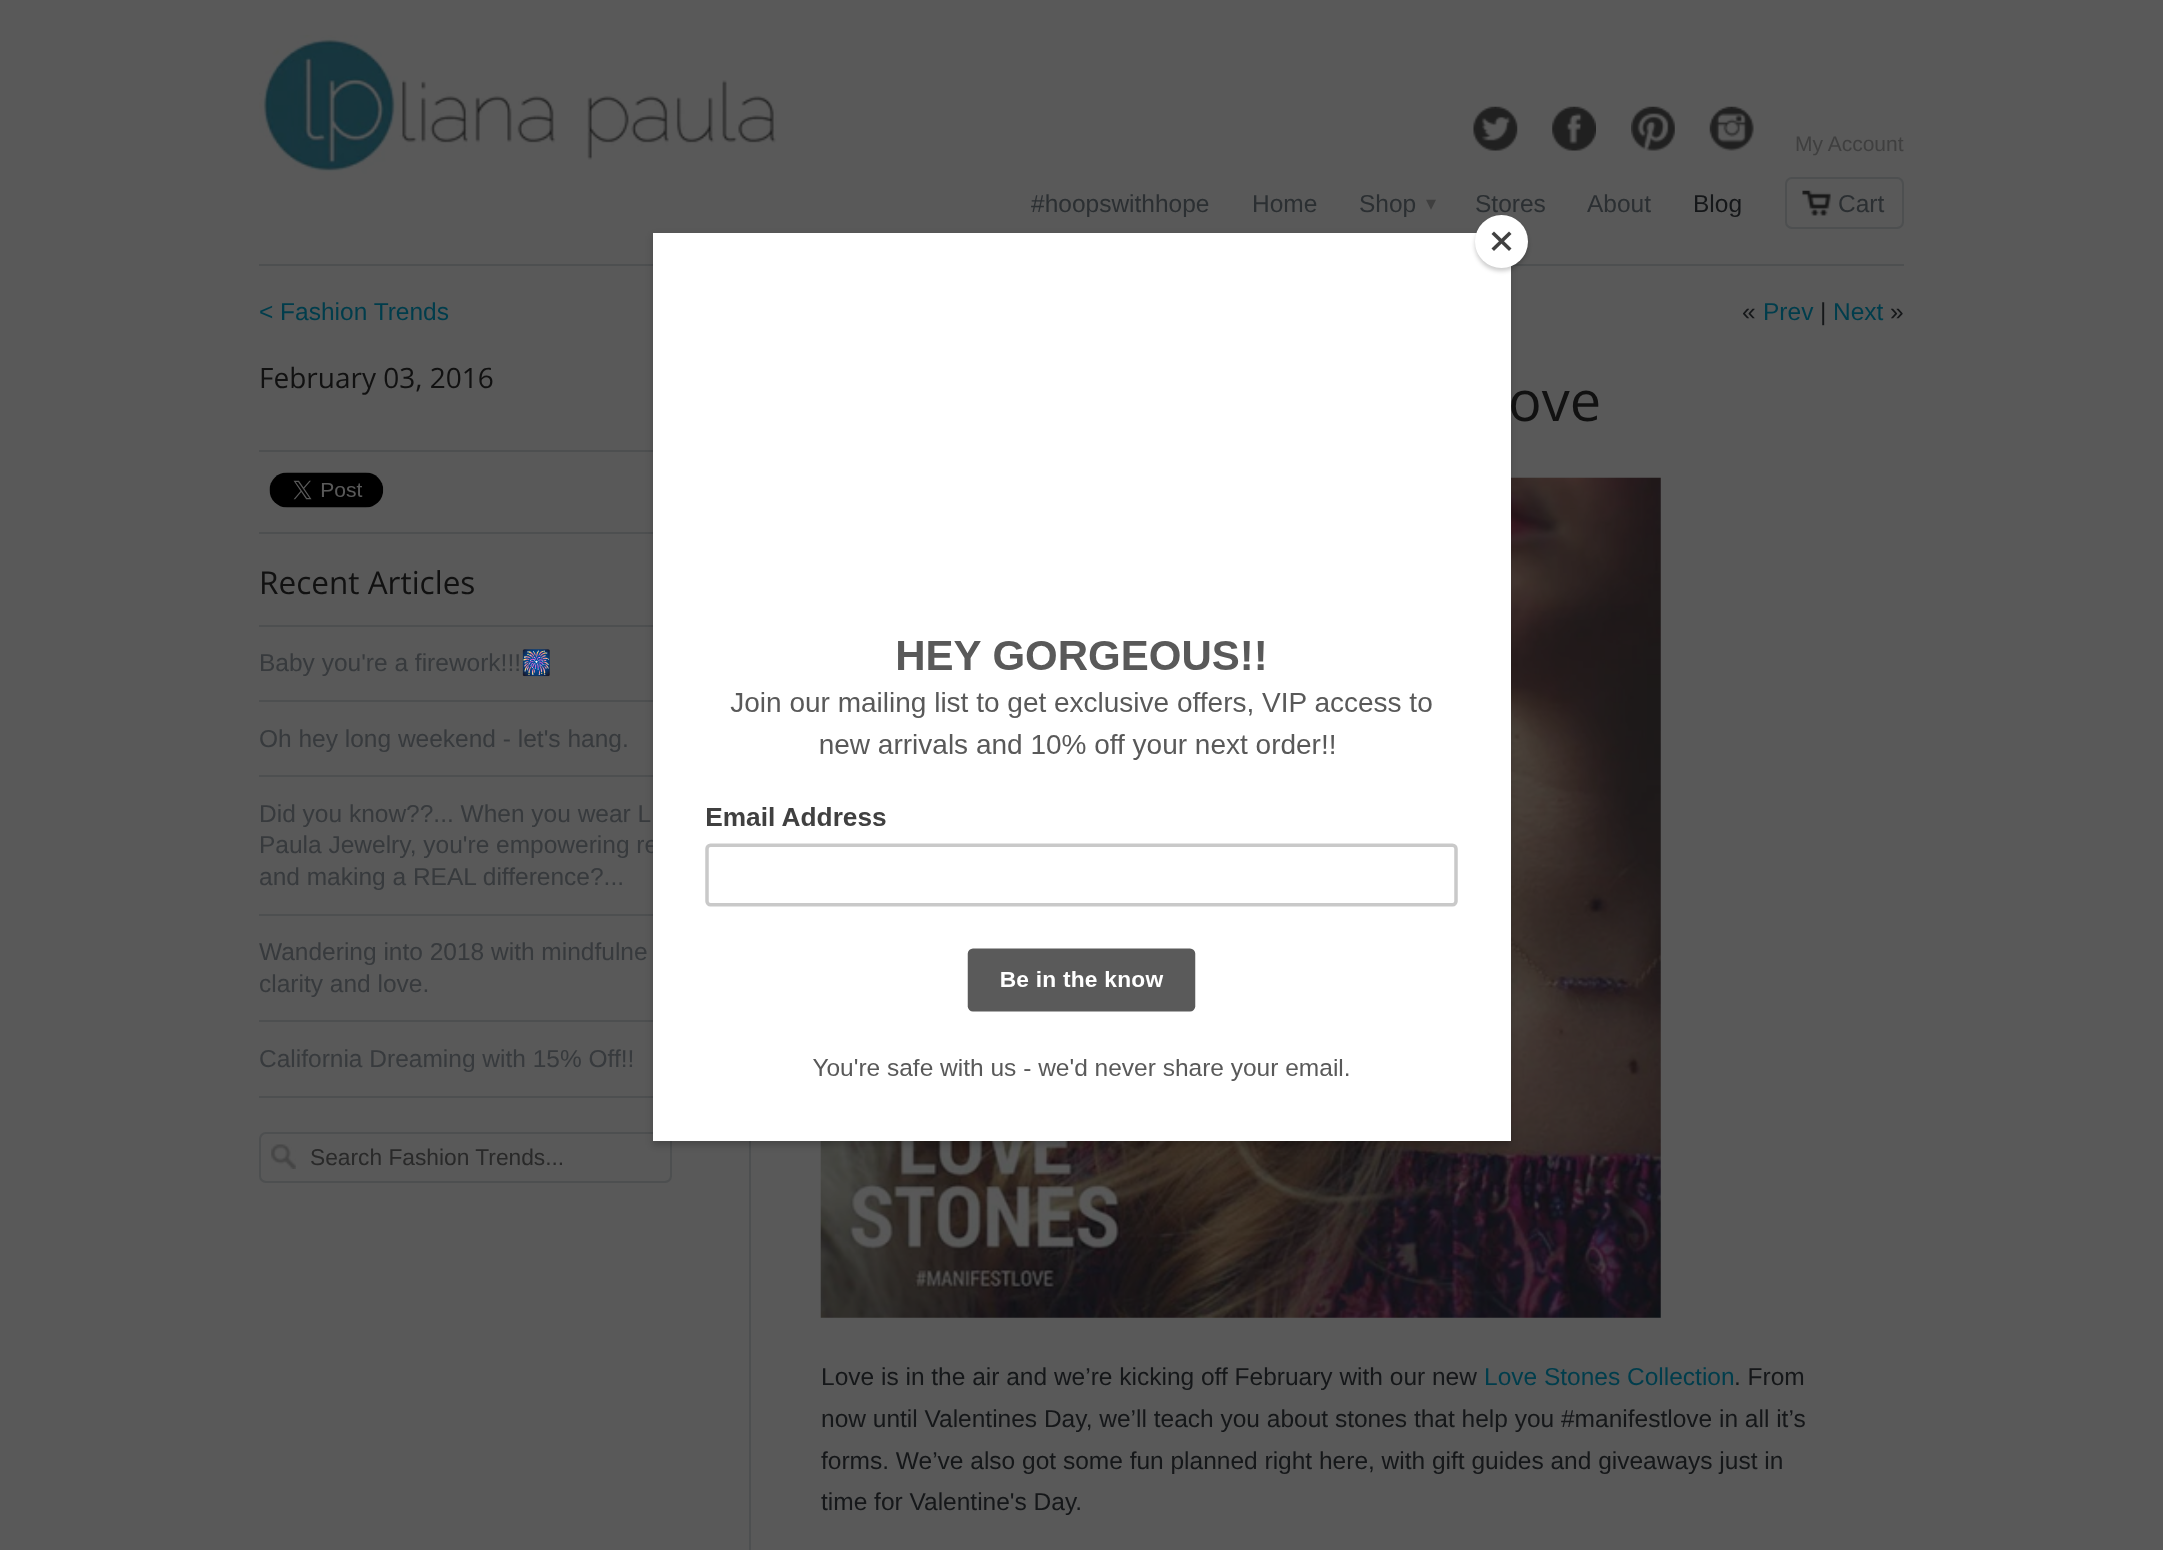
<svg xmlns="http://www.w3.org/2000/svg" width="2163" height="1550">
<rect width="100%" height="100%" fill="#595959"/>
<rect x="259" y="264" width="1645" height="2" fill="#4d4f50"/>
<image x="259" y="35" width="518" height="140" href="media/1.png"/>
<image x="1473" y="106" width="45" height="45" href="media/2.png"/>
<image x="1552" y="106" width="44" height="45" href="media/3.png"/>
<image x="1631" y="106" width="44" height="45" href="media/4.png"/>
<image x="1709" y="106" width="45" height="45" href="media/5.png"/>
<text x="1795" y="151" style="font-family:Liberation Sans;font-size:21px;fill:#3f3f3f">My Account</text>
<text x="1031" y="212" style="font-family:Liberation Sans;font-size:24.5px;fill:#2b2f32">#hoopswithhope</text>
<text x="1252" y="212" style="font-family:Liberation Sans;font-size:24.5px;fill:#2b2f32">Home</text>
<text x="1359" y="212" style="font-family:Liberation Sans;font-size:24.5px;fill:#2b2f32">Shop</text>
<text x="1426" y="210" style="font-family:DejaVu Sans;font-size:20px;fill:#3f3f3f">▾</text>
<text x="1475" y="212" style="font-family:Liberation Sans;font-size:24.5px;fill:#2b2f32">Stores</text>
<text x="1587" y="212" style="font-family:Liberation Sans;font-size:24.5px;fill:#2b2f32">About</text>
<text x="1693" y="212" style="font-family:Liberation Sans;font-size:24.5px;fill:#151719">Blog</text>
<image x="1802" y="190" width="29" height="26" href="media/6.png"/>
<rect x="1786" y="178" width="117" height="50" rx="6" fill="none" stroke="#4d4f50" stroke-width="2"/>
<text x="1838" y="212" style="font-family:Liberation Sans;font-size:24.5px;fill:#2b2f32">Cart</text>
<rect x="259" y="450" width="394" height="2" fill="#4d4f50"/>
<rect x="259" y="532" width="394" height="2" fill="#4d4f50"/>
<rect x="259" y="625" width="394" height="2" fill="#4d4f50"/>
<rect x="259" y="700" width="394" height="2" fill="#4d4f50"/>
<rect x="259" y="775" width="394" height="2" fill="#4d4f50"/>
<rect x="259" y="914" width="394" height="2" fill="#4d4f50"/>
<rect x="259" y="1020" width="394" height="2" fill="#4d4f50"/>
<rect x="259" y="1096" width="394" height="2" fill="#4d4f50"/>
<image x="271" y="1144" width="25" height="25" href="media/9.png"/>
<rect x="260" y="1133" width="411" height="49" rx="6" fill="none" stroke="#4d4f50" stroke-width="2"/>
<rect x="749" y="1141" width="2" height="409" fill="#4d4f50"/>
<image x="820" y="477" width="841" height="841" href="media/10.png"/>
<rect x="653" y="236" width="857" height="909" fill="#00000033" filter="blur(3.5px)"/>
<text x="259" y="853" style="font-family:Liberation Sans;font-size:24.5px;fill:#373a3d">Paula Jewelry, you're empowering re</text>
<image x="653" y="233" width="858" height="908" href="media/7.png"/>
<rect x="1475" y="219" width="53" height="52" rx="26" fill="#00000033" filter="blur(2px)"/>
<circle cx="1501.5" cy="241.5" r="26.5" fill="#fff"/>
<path d="M1509 231.5l2.5 2.5l-17.5 17l-2.5-2.5z" fill="#414141"/>
<path d="M1491.5 234l2.5-2.5l17.5 17l-2.5 2.5z" fill="#414141"/>
<text x="259" y="320" style="font-family:Liberation Sans;font-size:24.5px;fill:#003d4c">&lt; Fashion Trends</text>
<text x="1742" y="320" style="font-family:Liberation Sans;font-size:24.5px;fill:#151719">«</text>
<text x="1763" y="320" style="font-family:Liberation Sans;font-size:24.5px;fill:#003d4c">Prev</text>
<text x="1820" y="320" style="font-family:Liberation Sans;font-size:24.5px;fill:#151719">|</text>
<text x="1833" y="320" style="font-family:Liberation Sans;font-size:24.5px;fill:#003d4c">Next</text>
<text x="1890" y="320" style="font-family:Liberation Sans;font-size:24.5px;fill:#151719">»</text>
<text x="259" y="388" style="font-family:Open Sans;font-size:28px;fill:#111">February 03, 2016</text>
<image x="269" y="472" width="115" height="36" href="media/8.png"/>
<text x="259" y="594" style="font-family:Open Sans;font-size:31.5px;fill:#111">Recent Articles</text>
<text x="259" y="671" style="font-family:Liberation Sans;font-size:24.5px;fill:#373a3d">Baby you're a firework!!!</text>
<text x="521" y="671" style="font-family:Noto Color Emoji;font-size:24.5px;fill:#373a3d">🎆</text>
<text x="259" y="747" style="font-family:Liberation Sans;font-size:24.5px;fill:#373a3d">Oh hey long weekend - let's hang.</text>
<text x="259" y="822" style="font-family:Liberation Sans;font-size:24.5px;fill:#373a3d">Did you know??... When you wear L</text>
<text x="259" y="885" style="font-family:Liberation Sans;font-size:24.5px;fill:#373a3d">and making a REAL difference?...</text>
<text x="259" y="960" style="font-family:Liberation Sans;font-size:24.5px;fill:#373a3d">Wandering into 2018 with mindfulne</text>
<text x="259" y="992" style="font-family:Liberation Sans;font-size:24.5px;fill:#373a3d">clarity and love.</text>
<text x="259" y="1067" style="font-family:Liberation Sans;font-size:24.5px;fill:#373a3d">California Dreaming with 15% Off!!</text>
<text x="310" y="1165" style="font-family:Liberation Sans;font-size:22.75px;fill:#292929">Search Fashion Trends...</text>
<text x="1508" y="421" style="font-family:Open Sans;font-size:56px;fill:#111">ove</text>
<text x="821" y="1385" style="font-family:Liberation Sans;font-size:24.5px;fill:#151719">Love is in the air and we’re kicking off February with our new</text>
<text x="1484" y="1385" style="font-family:Liberation Sans;font-size:24.5px;fill:#003d4c">Love Stones Collection</text>
<text x="1734" y="1385" style="font-family:Liberation Sans;font-size:24.5px;fill:#151719">. From</text>
<text x="821" y="1427" style="font-family:Liberation Sans;font-size:24.5px;fill:#151719">now until Valentines Day, we’ll teach you about stones that help you #manifestlove in all it’s</text>
<text x="821" y="1469" style="font-family:Liberation Sans;font-size:24.5px;fill:#151719">forms. We’ve also got some fun planned right here, with gift guides and giveaways just in</text>
<text x="821" y="1510" style="font-family:Liberation Sans;font-size:24.5px;fill:#151719">time for Valentine's Day.</text>
</svg>
